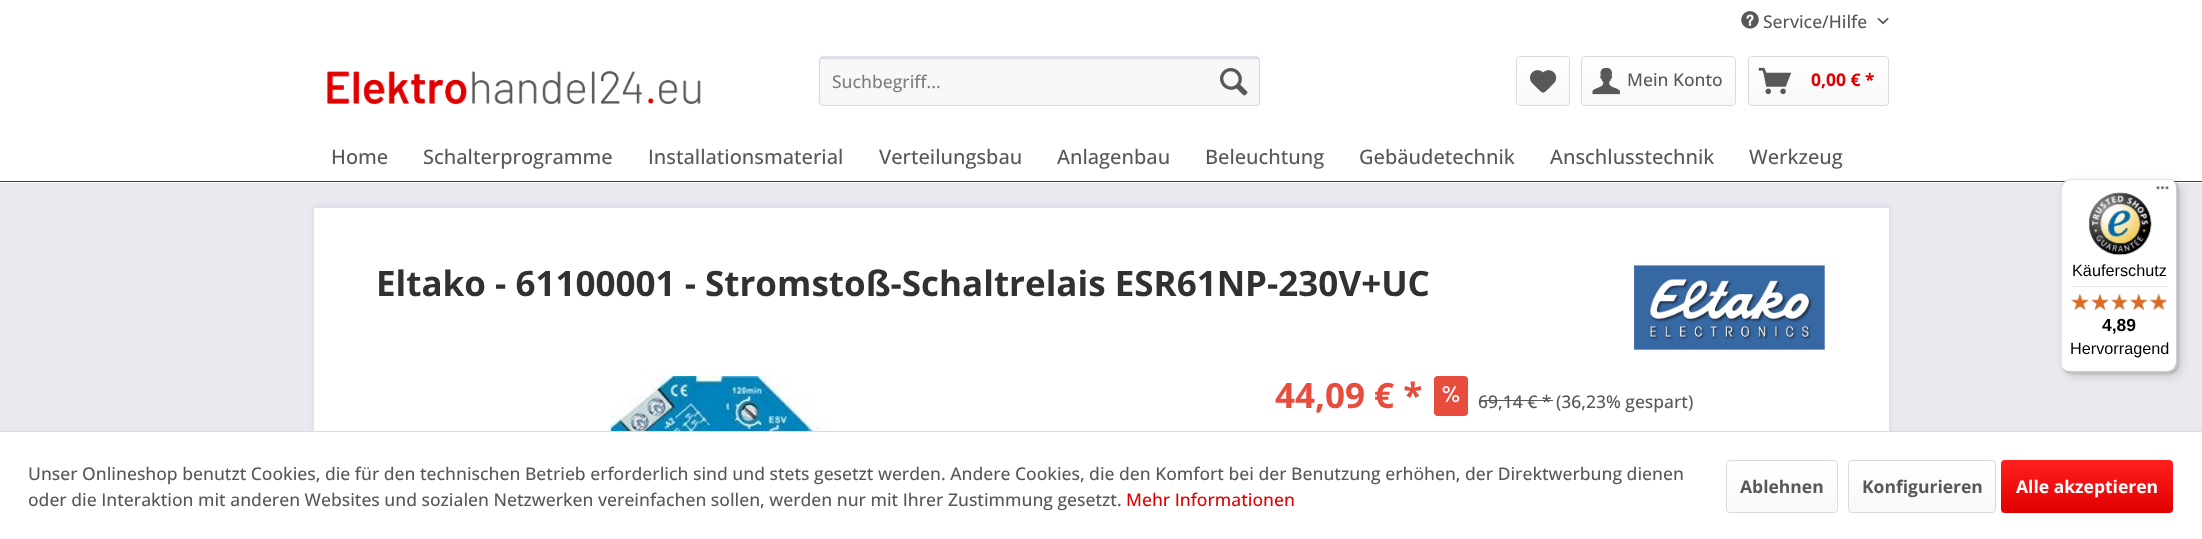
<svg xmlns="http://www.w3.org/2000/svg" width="2202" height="539">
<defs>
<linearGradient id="g1" gradientUnits="userSpaceOnUse" x1="1543" y1="58" x2="1543" y2="105"><stop offset="0" stop-color="#fff"/><stop offset="1" stop-color="#f8f8fa"/></linearGradient>
<linearGradient id="g2" gradientUnits="userSpaceOnUse" x1="1659" y1="57" x2="1659" y2="105"><stop offset="0" stop-color="#fff"/><stop offset="1" stop-color="#f8f8fa"/></linearGradient>
<linearGradient id="g3" gradientUnits="userSpaceOnUse" x1="1818" y1="57" x2="1818" y2="105"><stop offset="0" stop-color="#fff"/><stop offset="1" stop-color="#f8f8fa"/></linearGradient>
<linearGradient id="g4" gradientUnits="userSpaceOnUse" x1="1782" y1="461" x2="1782" y2="511"><stop offset="0" stop-color="#fff"/><stop offset="1" stop-color="#f8f8fa"/></linearGradient>
<linearGradient id="g5" gradientUnits="userSpaceOnUse" x1="1922" y1="461" x2="1922" y2="511"><stop offset="0" stop-color="#fff"/><stop offset="1" stop-color="#f8f8fa"/></linearGradient>
<linearGradient id="g6" gradientUnits="userSpaceOnUse" x1="2087" y1="460" x2="2087" y2="513"><stop offset="0" stop-color="#ff1f1f"/><stop offset="1" stop-color="#e10000"/></linearGradient>
</defs>
<rect width="100%" height="100%" fill="#e9e9f0"/>
<rect width="2202" height="183" fill="#fff"/>
<image x="1741" y="11" width="18" height="18" href="media/1.png"/>
<text x="1763" y="28" style="font-family:Open Sans;font-size:17.5px;font-weight:500;fill:#585856">Service/Hilfe</text>
<image x="1877" y="17" width="12" height="8" href="media/2.png"/>
<image x="327" y="70" width="374" height="35" href="media/3.png"/>
<rect x="819" y="56" width="441" height="50" rx="4" fill="#f8f8fa"/>
<path d="M822 59h434c2 0 3 1 3 2c0-2-1-3-3-3h-434l-1 1l-1 2c0-1 1-2 2-2z" fill="#dadae5"/>
<path d="M820.5 58l2-1h433.5l2.5 1" fill="none" stroke="#cbcbdb" stroke-width="1.2"/>
<path d="M1258.5 58l1 2v42.5l-1 2l-2.5 1h-433.5l-2-1l-1-2v-42.5l1-2" fill="none" stroke="#dadae5" stroke-width="1.2"/>
<text x="832" y="88" style="font-family:Open Sans;font-size:17.5px;font-weight:500;fill:#7f7f7c">Suchbegriff...</text>
<image x="1220" y="68" width="28" height="28" href="media/4.png"/>
<rect x="1518" y="58" width="51" height="47" rx="2.5" fill="url(#g1)"/>
<rect x="1516.5" y="56.5" width="53" height="49" rx="3.5" fill="none" stroke="#dadae5"/>
<image x="1530" y="70" width="27" height="23" href="media/5.png"/>
<rect x="1583" y="58" width="152" height="47" rx="2.5" fill="url(#g2)"/>
<rect x="1581.5" y="56.5" width="154" height="49" rx="3.5" fill="none" stroke="#dadae5"/>
<image x="1592" y="67" width="28" height="28" href="media/6.png"/>
<text x="1627" y="86" style="font-family:Open Sans;font-size:17.5px;font-weight:500;fill:#585856">Mein Konto</text>
<rect x="1749" y="58" width="139" height="47" rx="2.5" fill="url(#g3)"/>
<rect x="1748.5" y="56.5" width="140" height="49" rx="3.5" fill="none" stroke="#dadae5"/>
<image x="1758" y="67" width="34" height="28" href="media/7.png"/>
<text x="1811" y="86" style="font-family:Open Sans;font-size:17.5px;font-weight:bold;fill:#e10000">0,00 € *</text>
<rect y="181" width="2202" height="1" fill="#e10000"/>
<text x="331" y="164" style="font-family:Open Sans;font-size:20px;font-weight:500;fill:#585856">Home</text>
<text x="423" y="164" style="font-family:Open Sans;font-size:20px;font-weight:500;fill:#585856">Schalterprogramme</text>
<text x="648" y="164" style="font-family:Open Sans;font-size:20px;font-weight:500;fill:#585856">Installationsmaterial</text>
<text x="879" y="164" style="font-family:Open Sans;font-size:20px;font-weight:500;fill:#585856">Verteilungsbau</text>
<text x="1057" y="164" style="font-family:Open Sans;font-size:20px;font-weight:500;fill:#585856">Anlagenbau</text>
<text x="1205" y="164" style="font-family:Open Sans;font-size:20px;font-weight:500;fill:#585856">Beleuchtung</text>
<text x="1359" y="164" style="font-family:Open Sans;font-size:20px;font-weight:500;fill:#585856">Gebäudetechnik</text>
<text x="1550" y="164" style="font-family:Open Sans;font-size:20px;font-weight:500;fill:#585856">Anschlusstechnik</text>
<text x="1749" y="164" style="font-family:Open Sans;font-size:20px;font-weight:500;fill:#585856">Werkzeug</text>
<rect x="313" y="206" width="1577" height="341" fill="#dadae5" filter="blur(2.5px)"/>
<rect x="314" y="208" width="1575" height="223" fill="#fff"/>
<text x="376" y="296" style="font-family:Open Sans;font-size:35px;font-weight:bold;fill:#313130">Eltako - 61100001 - Stromstoß-Schaltrelais ESR61NP-230V+UC</text>
<image x="1633" y="265" width="193" height="85" href="media/8.png"/>
<image x="609" y="376" width="221" height="55" href="media/9.png"/>
<text x="1275" y="408" style="font-family:Open Sans;font-size:35px;font-weight:bold;fill:#e74c3c">44,09 € *</text>
<rect x="1434" y="376" width="34" height="40" rx="4" fill="#e74c3c"/>
<image x="1442" y="386" width="18" height="17" href="media/10.png"/>
<text x="1478" y="408" style="font-family:Open Sans;font-size:17.5px;font-weight:500;fill:#585856">69,14 € * (36,23% gespart)</text>
<rect x="1479" y="400" width="74" height="1" fill="#585856"/>
<rect x="2065" y="183" width="116" height="193" rx="10" fill="#00000026" filter="blur(5px)"/>
<rect x="2063" y="180" width="116" height="194" rx="10" fill="#00000026" filter="blur(1px)"/>
<rect x="2061" y="179" width="117" height="194" rx="10" fill="#fff"/>
<path d="M2072 180h97c2 0 5 1 7 3c-2-3-5-4-8-4h-97c-6 0-10 4-10 10v174c0 4 2 7 5 9c-2-2-4-5-4-8v-174c0-6 5-10 10-10z" fill="#0000001a"/>
<path d="M2062 367c2 4 5 6 9 6h97c6 0 10-4 10-10v-174c0-4-2-7-6-9c3 2 4 5 4 8v173c0 6-4 10-10 10h-96c-3 0-6-1-8-4z" fill="#00000033"/>
<path d="M2062 368c2 3 5 5 9 5h97c6 0 10-4 10-10v-174c0-3-1-6-3-8c1 2 2 4 2 7v174c0 5-5 10-10 10h-97c-3 0-6-2-8-4z" fill="#32323233"/>
<path d="M2061 362v1c0 6 4 10 10 10h97c6 0 10-4 10-10v-174c0-4-2-7-5-9c2 2 4 5 4 8v174c0 5-5 10-10 10h-96c-6 0-10-5-10-10z" fill="#ffffff4d"/>
<image x="2156" y="186" width="13" height="4" href="media/11.png"/>
<image x="2089" y="192" width="63" height="64" href="media/12.png"/>
<text x="2072" y="276" style="font-family:Liberation Sans;font-size:16.25px;fill:#000">Käuferschutz</text>
<rect x="2071" y="286" width="97" height="1" fill="#e5e5e5"/>
<image x="2071" y="294" width="18" height="16" href="media/13.png"/>
<image x="2092" y="294" width="16" height="16" href="media/14.png"/>
<image x="2111" y="294" width="17" height="16" href="media/15.png"/>
<image x="2130" y="293" width="17" height="17" href="media/16.png"/>
<image x="2150" y="294" width="18" height="16" href="media/17.png"/>
<image x="2071" y="293" width="18" height="17" href="media/18.png"/>
<image x="2091" y="293" width="18" height="17" href="media/19.png"/>
<image x="2111" y="293" width="17" height="17" href="media/20.png"/>
<image x="2130" y="293" width="17" height="17" href="media/21.png"/>
<image x="2150" y="293" width="17" height="17" href="media/22.png"/>
<text x="2102" y="331" style="font-family:Liberation Sans;font-size:17.5px;font-weight:bold;fill:#000">4,89</text>
<text x="2070" y="354" style="font-family:Liberation Sans;font-size:16.25px;fill:#000">Hervorragend</text>
<rect y="432" width="2202" height="107" fill="#fff"/>
<rect y="431" width="2202" height="1" fill="#dadae5"/>
<text x="28" y="480" style="font-family:Open Sans;font-size:17.5px;font-weight:500;fill:#585856">Unser Onlineshop benutzt Cookies, die für den technischen Betrieb erforderlich sind und stets gesetzt werden. Andere Cookies, die den Komfort bei der Benutzung erhöhen, der Direktwerbung dienen</text>
<text x="28" y="506" style="font-family:Open Sans;font-size:17.5px;font-weight:500;fill:#585856">oder die Interaktion mit anderen Websites und sozialen Netzwerken vereinfachen sollen, werden nur mit Ihrer Zustimmung gesetzt.</text>
<text x="1126" y="506" style="font-family:Open Sans;font-size:17.5px;font-weight:500;fill:#e10000">Mehr Informationen</text>
<rect x="1728" y="461" width="108" height="50" rx="2.5" fill="url(#g4)"/>
<rect x="1726.5" y="460.5" width="111" height="52" rx="3.5" fill="none" stroke="#dadae5"/>
<text x="1740" y="493" style="font-family:Open Sans;font-size:17.5px;font-weight:bold;fill:#585856">Ablehnen</text>
<rect x="1849" y="461" width="146" height="50" rx="2.5" fill="url(#g5)"/>
<rect x="1848.5" y="460.5" width="147" height="52" rx="3.5" fill="none" stroke="#dadae5"/>
<text x="1862" y="493" style="font-family:Open Sans;font-size:17.5px;font-weight:bold;fill:#585856">Konfigurieren</text>
<rect x="2001" y="460" width="172" height="53" rx="4" fill="url(#g6)"/>
<text x="2016" y="493" style="font-family:Open Sans;font-size:17.5px;font-weight:bold;fill:#fff">Alle akzeptieren</text>
</svg>
